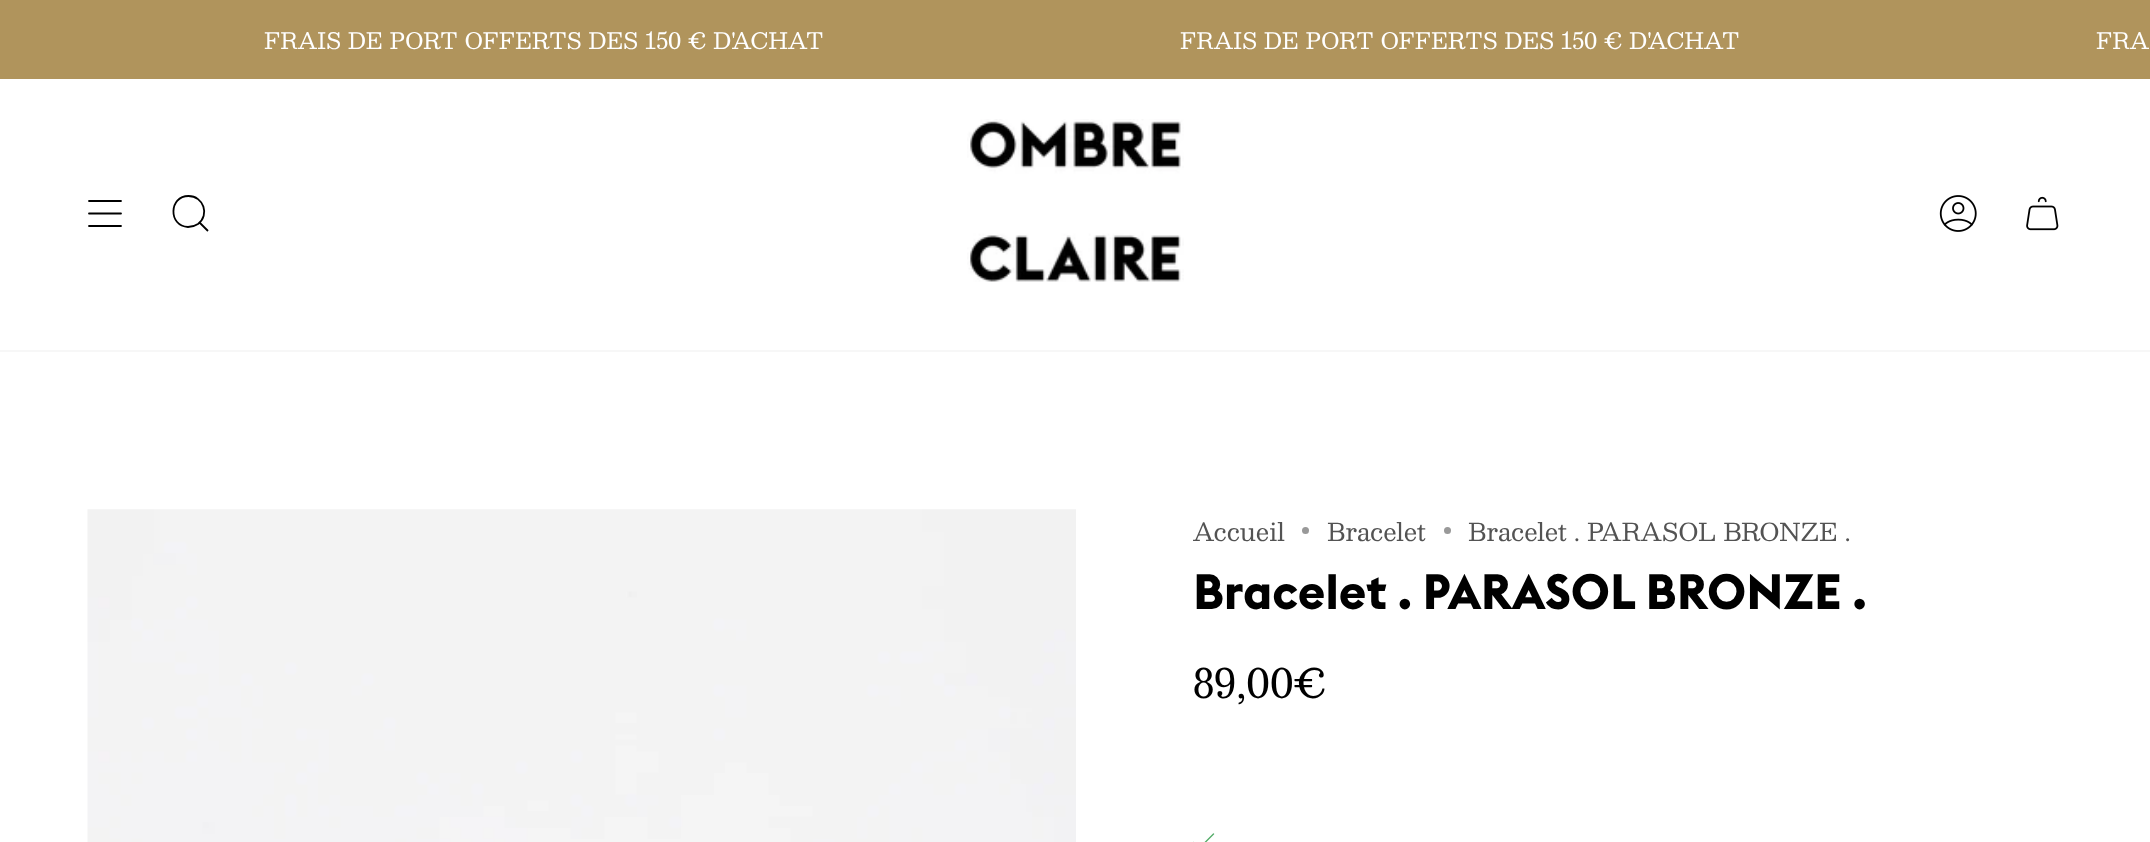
<svg xmlns="http://www.w3.org/2000/svg" width="2150" height="842">
<rect width="100%" height="100%" fill="#fff"/>
<rect width="2150" height="79" fill="#b0945c"/>
<text x="264" y="49" style="font-family:Besley;font-size:22.4px;fill:#fff">FRAIS DE PORT OFFERTS DES 150 € D'ACHAT</text>
<text x="1180" y="49" style="font-family:Besley;font-size:22.4px;fill:#fff">FRAIS DE PORT OFFERTS DES 150 € D'ACHAT</text>
<text x="2096" y="49" style="font-family:Besley;font-size:22.4px;fill:#fff">FRA</text>
<rect y="350" width="2150" height="2" fill="#f7f7f7"/>
<path d="M89 201h32m-32 12.5h32m-32 12.5h32" fill="none" stroke="#000" stroke-width="1.8" stroke-linecap="round" stroke-linejoin="round"/>
<path d="M188.5 196c15 0 21.5 19 9.5 28c-3 2-6.5 3-10 3c-20-1-19-31 .5-31zm11 26.5l8.5 8.5" fill="none" stroke="#000" stroke-width="1.8"/>
<image x="967" y="119" width="217" height="163" href="media/1.png"/>
<image x="1939" y="195" width="38" height="37" href="media/2.png"/>
<image x="2026" y="196" width="33" height="35" href="media/3.png"/>
<image x="87" y="509" width="989" height="333" href="media/4.png"/>
<text x="1193" y="541" style="font-family:Besley;font-size:24.5px;fill:#535353">Accueil</text>
<circle cx="1305.5" cy="530.5" r="3.5" fill="#999"/>
<text x="1327" y="541" style="font-family:Besley;font-size:24.5px;fill:#535353">Bracelet</text>
<circle cx="1447.5" cy="530.5" r="3.5" fill="#999"/>
<text x="1468" y="541" style="font-family:Besley;font-size:24.5px;fill:#535353">Bracelet . PARASOL BRONZE .</text>
<text x="1193" y="609" style="font-family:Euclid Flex;font-size:49px;font-weight:bold;fill:#000">Bracelet . PARASOL BRONZE .</text>
<text x="1193" y="698" style="font-family:Besley;font-size:40px;fill:#000">89,00€</text>
<path d="M1193.5 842.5l6 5.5l14-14" fill="none" stroke="#56ad6a" stroke-width="1.4" stroke-linecap="round" stroke-linejoin="round"/>
</svg>
